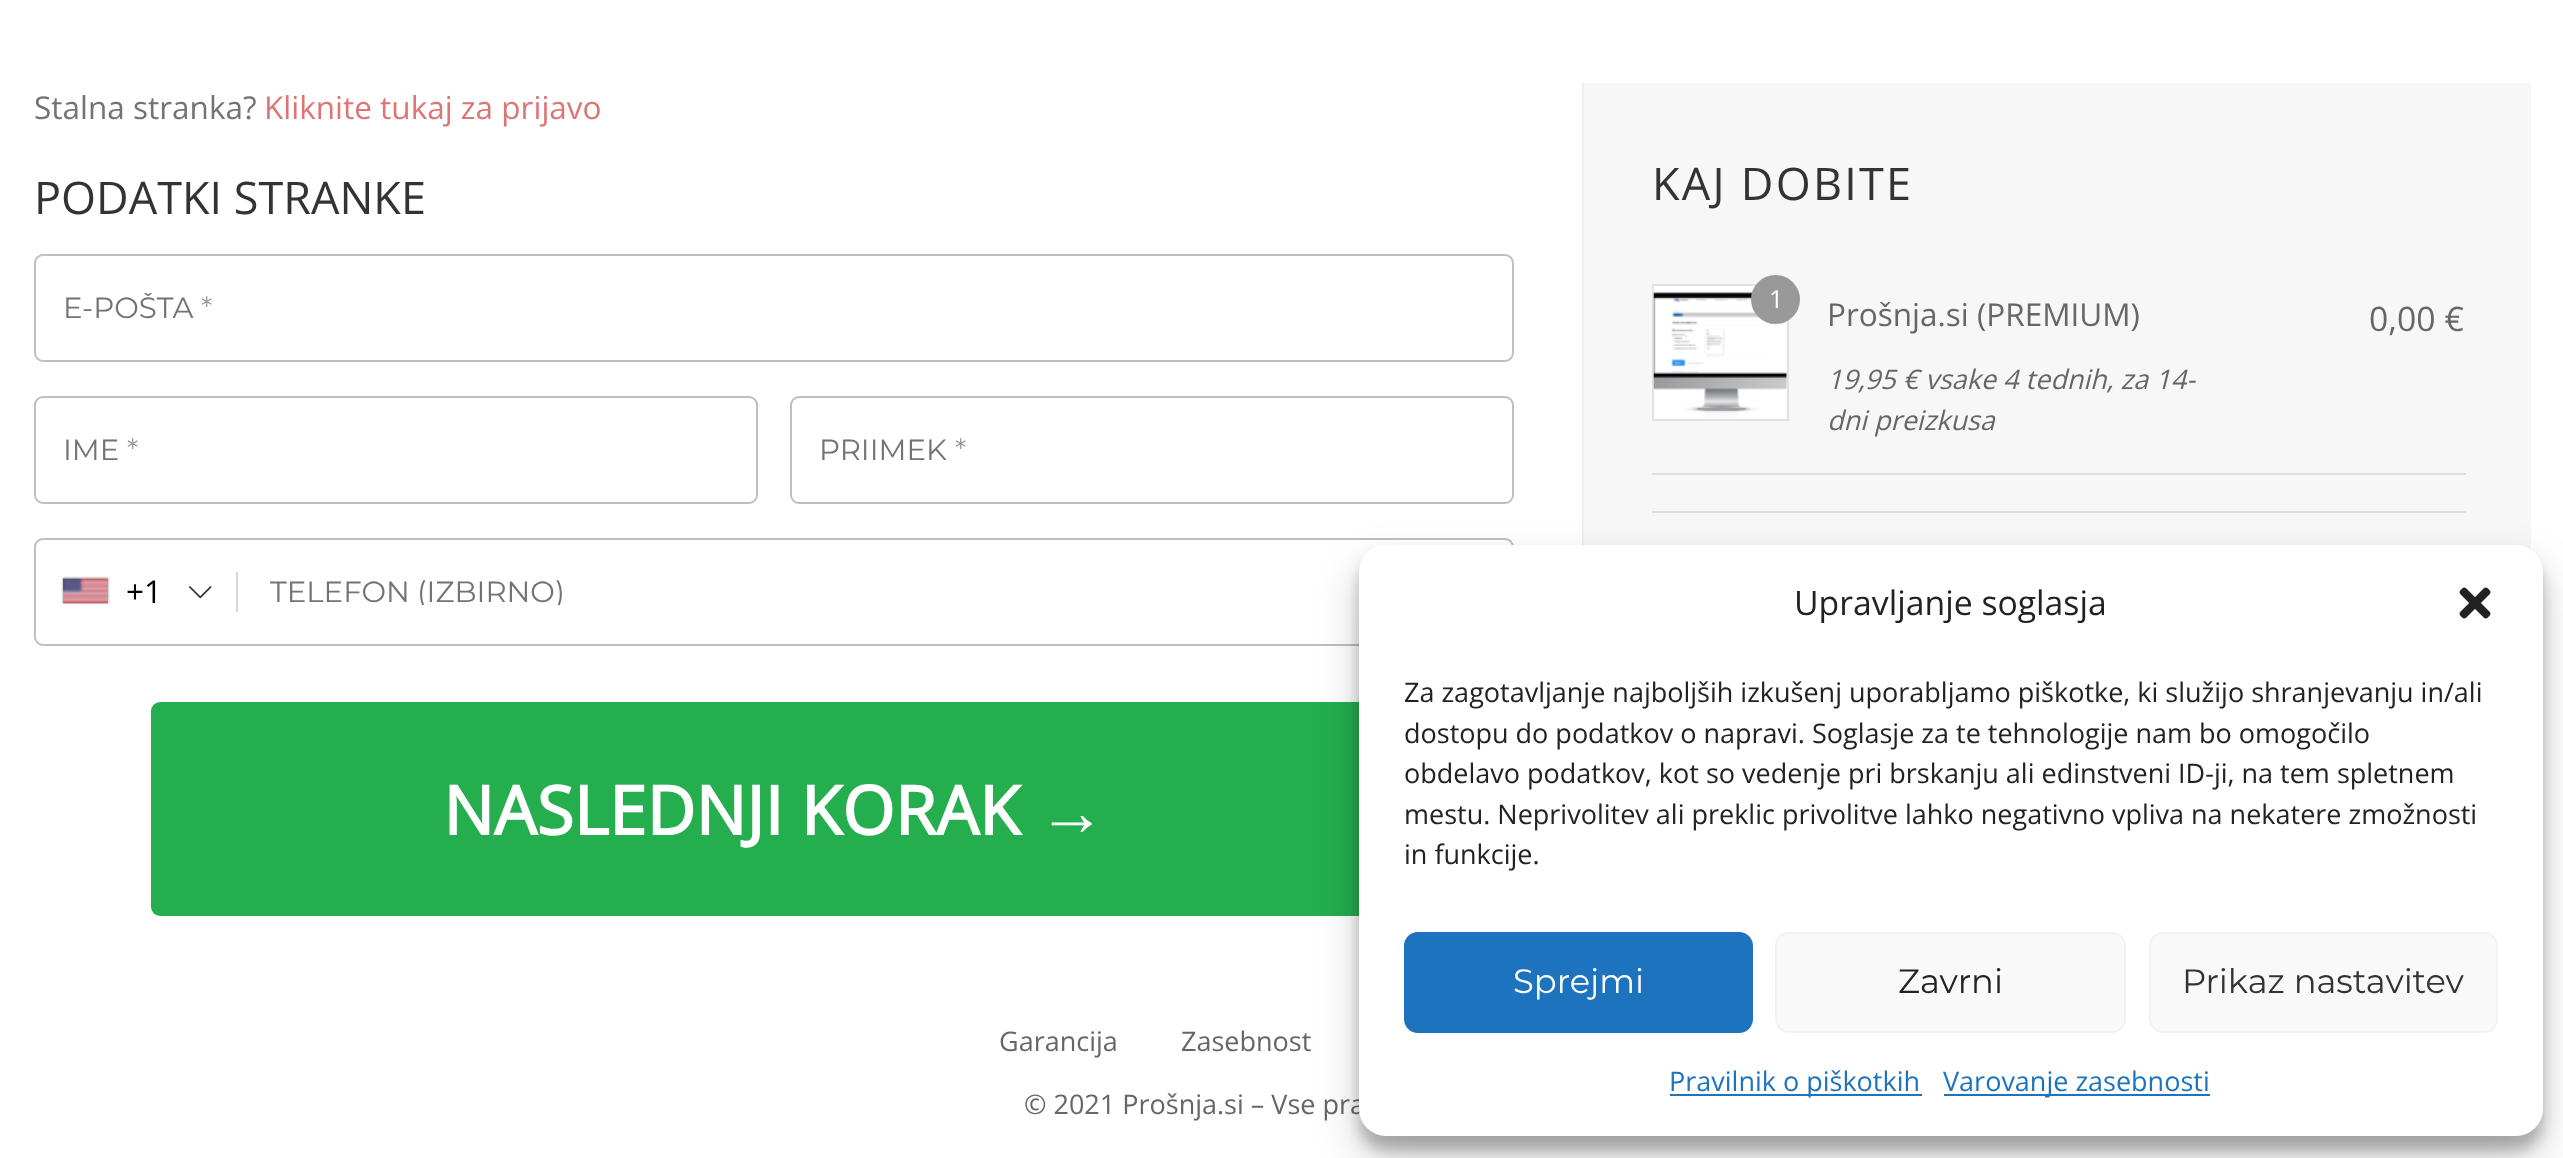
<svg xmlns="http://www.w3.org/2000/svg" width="2563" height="1158">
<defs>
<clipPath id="clip1"><rect x="63" y="293" width="1400" height="29"/></clipPath>
<clipPath id="clip2"><rect x="270" y="576" width="1193" height="29"/></clipPath>
</defs>
<rect width="100%" height="100%" fill="#fff"/>
<text x="34" y="119" style="font-family:Open Sans;font-size:31.5px;fill:#737373">Stalna stranka?</text>
<text x="264" y="119" style="font-family:Open Sans;font-size:31.5px;fill:#dd7575">Kliknite tukaj za prijavo</text>
<text x="34" y="214" style="font-family:Open Sans;font-size:45px;fill:#333">PODATKI STRANKE</text>
<rect x="35" y="255" width="1478" height="106" rx="8" fill="none" stroke="#bfbfbf" stroke-width="2"/>
<g clip-path="url(#clip1)">
<text x="63" y="318" style="font-family:Montserrat;font-size:29.25px;fill:#737373">E-POŠTA</text>
</g>
<text x="201" y="318" style="font-family:Montserrat;font-size:29.25px;fill:#999">*</text>
<rect x="35" y="397" width="722" height="106" rx="8" fill="none" stroke="#bfbfbf" stroke-width="2"/>
<text x="63" y="460" style="font-family:Montserrat;font-size:29.25px;fill:#737373">IME</text>
<text x="127" y="460" style="font-family:Montserrat;font-size:29.25px;fill:#999">*</text>
<rect x="791" y="397" width="722" height="106" rx="8" fill="none" stroke="#bfbfbf" stroke-width="2"/>
<text x="819" y="460" style="font-family:Montserrat;font-size:29.25px;fill:#737373">PRIIMEK</text>
<text x="955" y="460" style="font-family:Montserrat;font-size:29.25px;fill:#999">*</text>
<rect x="35" y="539" width="1478" height="106" rx="8" fill="none" stroke="#bfbfbf" stroke-width="2"/>
<rect x="63" y="578" width="45" height="25" fill="#888" filter="blur(1px)"/>
<rect x="63" y="578" width="45" height="1" fill="#dbdbdb"/>
<image x="63" y="578" width="45" height="26" href="media/1.png"/>
<text x="126" y="603" style="font-family:Open Sans;font-size:31.5px;fill:#000">+1</text>
<image x="189" y="586" width="23" height="13" href="media/2.png"/>
<rect x="236" y="572" width="2" height="40" fill="#d9d9d9"/>
<text x="270" y="602" style="font-family:Montserrat;font-size:29.25px;fill:#737373">TELEFON</text>
<g clip-path="url(#clip2)">
<text x="417" y="602" style="font-family:Montserrat;font-size:29.25px;fill:#737373">(IZBIRNO)</text>
</g>
<rect x="151" y="702" width="1246" height="214" rx="9" fill="#24ae4e"/>
<text x="443" y="835" style="font-family:Open Sans;font-size:67.5px;font-weight:bold;fill:#fff">NASLEDNJI KORAK</text>
<text x="1038" y="835" style="font-family:Liberation Serif;font-size:67.5px;font-weight:bold;fill:#fff">→</text>
<rect x="1584" y="83" width="947" height="467" fill="#f7f7f7"/>
<rect x="1582" y="83" width="2" height="462" fill="#eee"/>
<text x="1652" y="200" style="font-family:Open Sans;font-size:45px;letter-spacing:2.25px;fill:#333">KAJ DOBITE</text>
<rect x="1652" y="473" width="814" height="2" fill="#ddd"/>
<rect x="1653" y="285" width="135" height="135" fill="none" stroke="#e1e1e1" stroke-width="2"/>
<image x="1653" y="286" width="134" height="133" href="media/3.png"/>
<circle cx="1775.5" cy="299.5" r="24.5" fill="#999"/>
<text x="1769" y="308" style="font-family:Open Sans;font-size:25px;fill:#fff">1</text>
<text x="1827" y="326" style="font-family:Open Sans;font-size:31.5px;fill:#666">Prošnja.si (PREMIUM)</text>
<text x="1827" y="389" style="font-family:Open Sans;font-size:27px;font-style:italic;fill:#666">19,95 € vsake 4 tednih, za 14-</text>
<text x="1827" y="430" style="font-family:Open Sans;font-size:27px;font-style:italic;fill:#666">dni preizkusa</text>
<text x="2369" y="331" style="font-family:Open Sans;font-size:33.75px;fill:#666">0,00 €</text>
<rect x="1652" y="511" width="814" height="2" fill="#ddd"/>
<text x="999" y="1051" style="font-family:Open Sans;font-size:27px;fill:#666">Garancija</text>
<text x="1181" y="1051" style="font-family:Open Sans;font-size:27px;fill:#666">Zasebnost</text>
<text x="1024" y="1114" style="font-family:Open Sans;font-size:27px;fill:#666">© 2021 Prošnja.si – Vse pra</text>
<rect x="1359" y="558" width="1184" height="592" rx="27" fill="#0000003b" filter="blur(7px)"/>
<rect x="1359" y="567" width="1184" height="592" rx="27" fill="#00000030" filter="blur(22.5px)"/>
<rect x="1359" y="545" width="1184" height="591" rx="27" fill="#fff"/>
<text x="1794" y="615" style="font-family:Open Sans;font-size:33.75px;fill:#222">Upravljanje soglasja</text>
<image x="2459" y="587" width="32" height="32" href="media/4.png"/>
<text x="1404" y="702" style="font-family:Open Sans;font-size:27px;fill:#222">Za zagotavljanje najboljših izkušenj uporabljamo piškotke, ki služijo shranjevanju in/ali</text>
<text x="1404" y="743" style="font-family:Open Sans;font-size:27px;fill:#222">dostopu do podatkov o napravi. Soglasje za te tehnologije nam bo omogočilo</text>
<text x="1404" y="783" style="font-family:Open Sans;font-size:27px;fill:#222">obdelavo podatkov, kot so vedenje pri brskanju ali edinstveni ID-ji, na tem spletnem</text>
<text x="1404" y="824" style="font-family:Open Sans;font-size:27px;fill:#222">mestu. Neprivolitev ali preklic privolitve lahko negativno vpliva na nekatere zmožnosti</text>
<text x="1404" y="864" style="font-family:Open Sans;font-size:27px;fill:#222">in funkcije.</text>
<rect x="1405" y="933" width="347" height="99" rx="13" fill="#1e73be" stroke="#1e73be" stroke-width="2"/>
<text x="1513" y="993" style="font-family:Montserrat;font-size:33.75px;fill:#fff">Sprejmi</text>
<rect x="1776" y="933" width="349" height="99" rx="13" fill="#f9f9f9" stroke="#f2f2f2" stroke-width="2"/>
<text x="1898" y="993" style="font-family:Montserrat;font-size:33.75px;fill:#222">Zavrni</text>
<rect x="2150" y="933" width="347" height="99" rx="13" fill="#f9f9f9" stroke="#f2f2f2" stroke-width="2"/>
<text x="2182" y="993" style="font-family:Montserrat;font-size:33.75px;fill:#333">Prikaz nastavitev</text>
<rect x="1670" y="1094" width="252" height="2" fill="#1e73be"/>
<text x="1669" y="1091" style="font-family:Open Sans;font-size:27px;fill:#1e73be">Pravilnik o piškotkih</text>
<rect x="1944" y="1094" width="266" height="2" fill="#1e73be"/>
<text x="1943" y="1091" style="font-family:Open Sans;font-size:27px;fill:#1e73be">Varovanje zasebnosti</text>
</svg>
